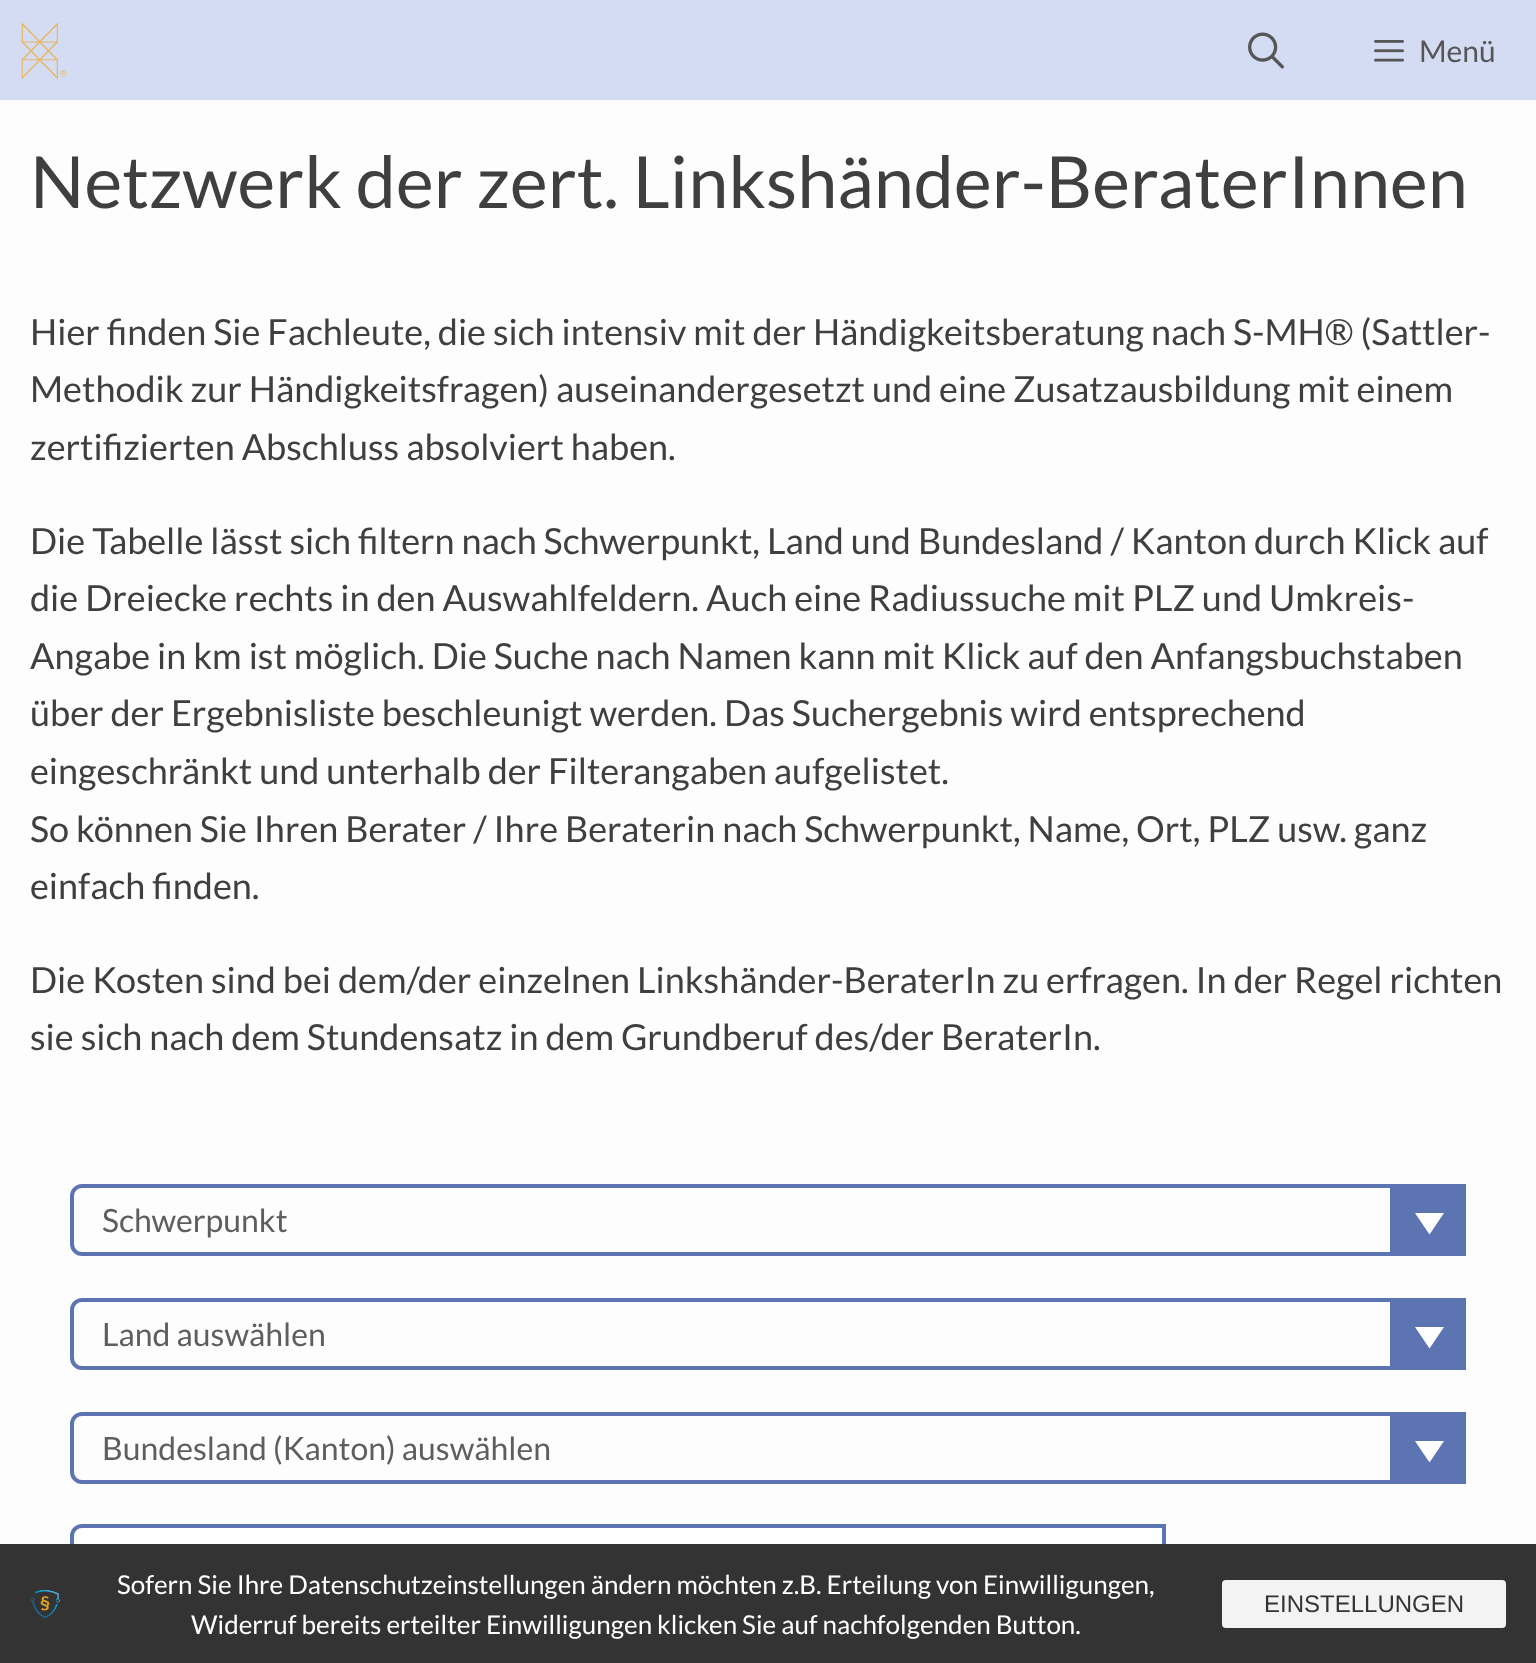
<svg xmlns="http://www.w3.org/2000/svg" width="1536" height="1663">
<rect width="100%" height="100%" fill="#d4dcf4"/>
<image x="21" y="23" width="46" height="56" href="media/1.png"/>
<image x="1248" y="32" width="36" height="37" href="media/2.png"/>
<image x="1374" y="40" width="30" height="22" href="media/3.png"/>
<text x="1419" y="62" style="font-family:Lato;font-size:30px;fill:#565656">Menü</text>
<rect y="100" width="1536" height="1444" fill="#fdfdfd"/>
<text x="30" y="208" style="font-family:Lato;font-size:72px;fill:#3f3f3f">Netzwerk der zert. Linkshänder-BeraterInnen</text>
<text x="30" y="345" style="font-family:Lato;font-size:36px;fill:#3f3f3f">Hier finden Sie Fachleute, die sich intensiv mit der Händigkeitsberatung nach S-MH® (Sattler-</text>
<text x="30" y="402" style="font-family:Lato;font-size:36px;fill:#3f3f3f">Methodik zur Händigkeitsfragen) auseinandergesetzt und eine Zusatzausbildung mit einem</text>
<text x="30" y="460" style="font-family:Lato;font-size:36px;fill:#3f3f3f">zertifizierten Abschluss absolviert haben.</text>
<text x="30" y="554" style="font-family:Lato;font-size:36px;fill:#3f3f3f">Die Tabelle lässt sich filtern nach Schwerpunkt, Land und Bundesland / Kanton durch Klick auf</text>
<text x="30" y="611" style="font-family:Lato;font-size:36px;fill:#3f3f3f">die Dreiecke rechts in den Auswahlfeldern. Auch eine Radiussuche mit PLZ und Umkreis-</text>
<text x="30" y="669" style="font-family:Lato;font-size:36px;fill:#3f3f3f">Angabe in km ist möglich. Die Suche nach Namen kann mit Klick auf den Anfangsbuchstaben</text>
<text x="30" y="726" style="font-family:Lato;font-size:36px;fill:#3f3f3f">über der Ergebnisliste beschleunigt werden. Das Suchergebnis wird entsprechend</text>
<text x="30" y="784" style="font-family:Lato;font-size:36px;fill:#3f3f3f">eingeschränkt und unterhalb der Filterangaben aufgelistet.</text>
<text x="30" y="842" style="font-family:Lato;font-size:36px;fill:#3f3f3f">So können Sie Ihren Berater / Ihre Beraterin nach Schwerpunkt, Name, Ort, PLZ usw. ganz</text>
<text x="30" y="899" style="font-family:Lato;font-size:36px;fill:#3f3f3f">einfach finden.</text>
<text x="30" y="993" style="font-family:Lato;font-size:36px;fill:#3f3f3f">Die Kosten sind bei dem/der einzelnen Linkshänder-BeraterIn zu erfragen. In der Regel richten</text>
<text x="30" y="1050" style="font-family:Lato;font-size:36px;fill:#3f3f3f">sie sich nach dem Stundensatz in dem Grundberuf des/der BeraterIn.</text>
<path d="M82 1186h1382v68h-1382c-5.5 0-10-4.5-10-10v-48c0-5.5 4.5-10 10-10z" fill="none" stroke="#5d74b2" stroke-width="4"/>
<text x="102" y="1232" style="font-family:Lato;font-size:32px;fill:#5e5e5e">Schwerpunkt</text>
<rect x="1390" y="1188" width="72" height="64" fill="#5d74b2"/>
<path d="M1444 1213l-14.5 21.5l-14.5-21.5z" fill="#fff"/>
<path d="M82 1300h1382v68h-1382c-5.5 0-10-4.5-10-10v-48c0-5.5 4.5-10 10-10z" fill="none" stroke="#5d74b2" stroke-width="4"/>
<text x="102" y="1346" style="font-family:Lato;font-size:32px;fill:#5e5e5e">Land auswählen</text>
<rect x="1390" y="1302" width="72" height="64" fill="#5d74b2"/>
<path d="M1444 1327l-14.5 21.5l-14.5-21.5z" fill="#fff"/>
<path d="M82 1414h1382v68h-1382c-5.5 0-10-4.5-10-10v-48c0-5.5 4.5-10 10-10z" fill="none" stroke="#5d74b2" stroke-width="4"/>
<text x="102" y="1460" style="font-family:Lato;font-size:32px;fill:#5e5e5e">Bundesland (Kanton) auswählen</text>
<rect x="1390" y="1416" width="72" height="64" fill="#5d74b2"/>
<path d="M1444 1441l-14.5 21.5l-14.5-21.5z" fill="#fff"/>
<path d="M82 1526h1082v68h-1082c-5.5 0-10-4.5-10-10v-48c0-5.5 4.5-10 10-10z" fill="#fff" stroke="#5d74b2" stroke-width="4"/>
<rect y="1544" width="1536" height="119" fill="#333"/>
<image x="30" y="1589" width="30" height="29" href="media/4.png"/>
<text x="117" y="1594" style="font-family:Lato;font-size:26px;fill:#fff">Sofern Sie Ihre Datenschutzeinstellungen ändern möchten z.B. Erteilung von Einwilligungen,</text>
<text x="191" y="1634" style="font-family:Lato;font-size:26px;fill:#fff">Widerruf bereits erteilter Einwilligungen klicken Sie auf nachfolgenden Button.</text>
<rect x="1223" y="1581" width="282" height="46" rx="3" fill="#f3f3f3" stroke="#f3f3f3" stroke-width="2"/>
<text x="1264" y="1612" style="font-family:Liberation Sans;font-size:24px;fill:#333">EINSTELLUNGEN</text>
</svg>
